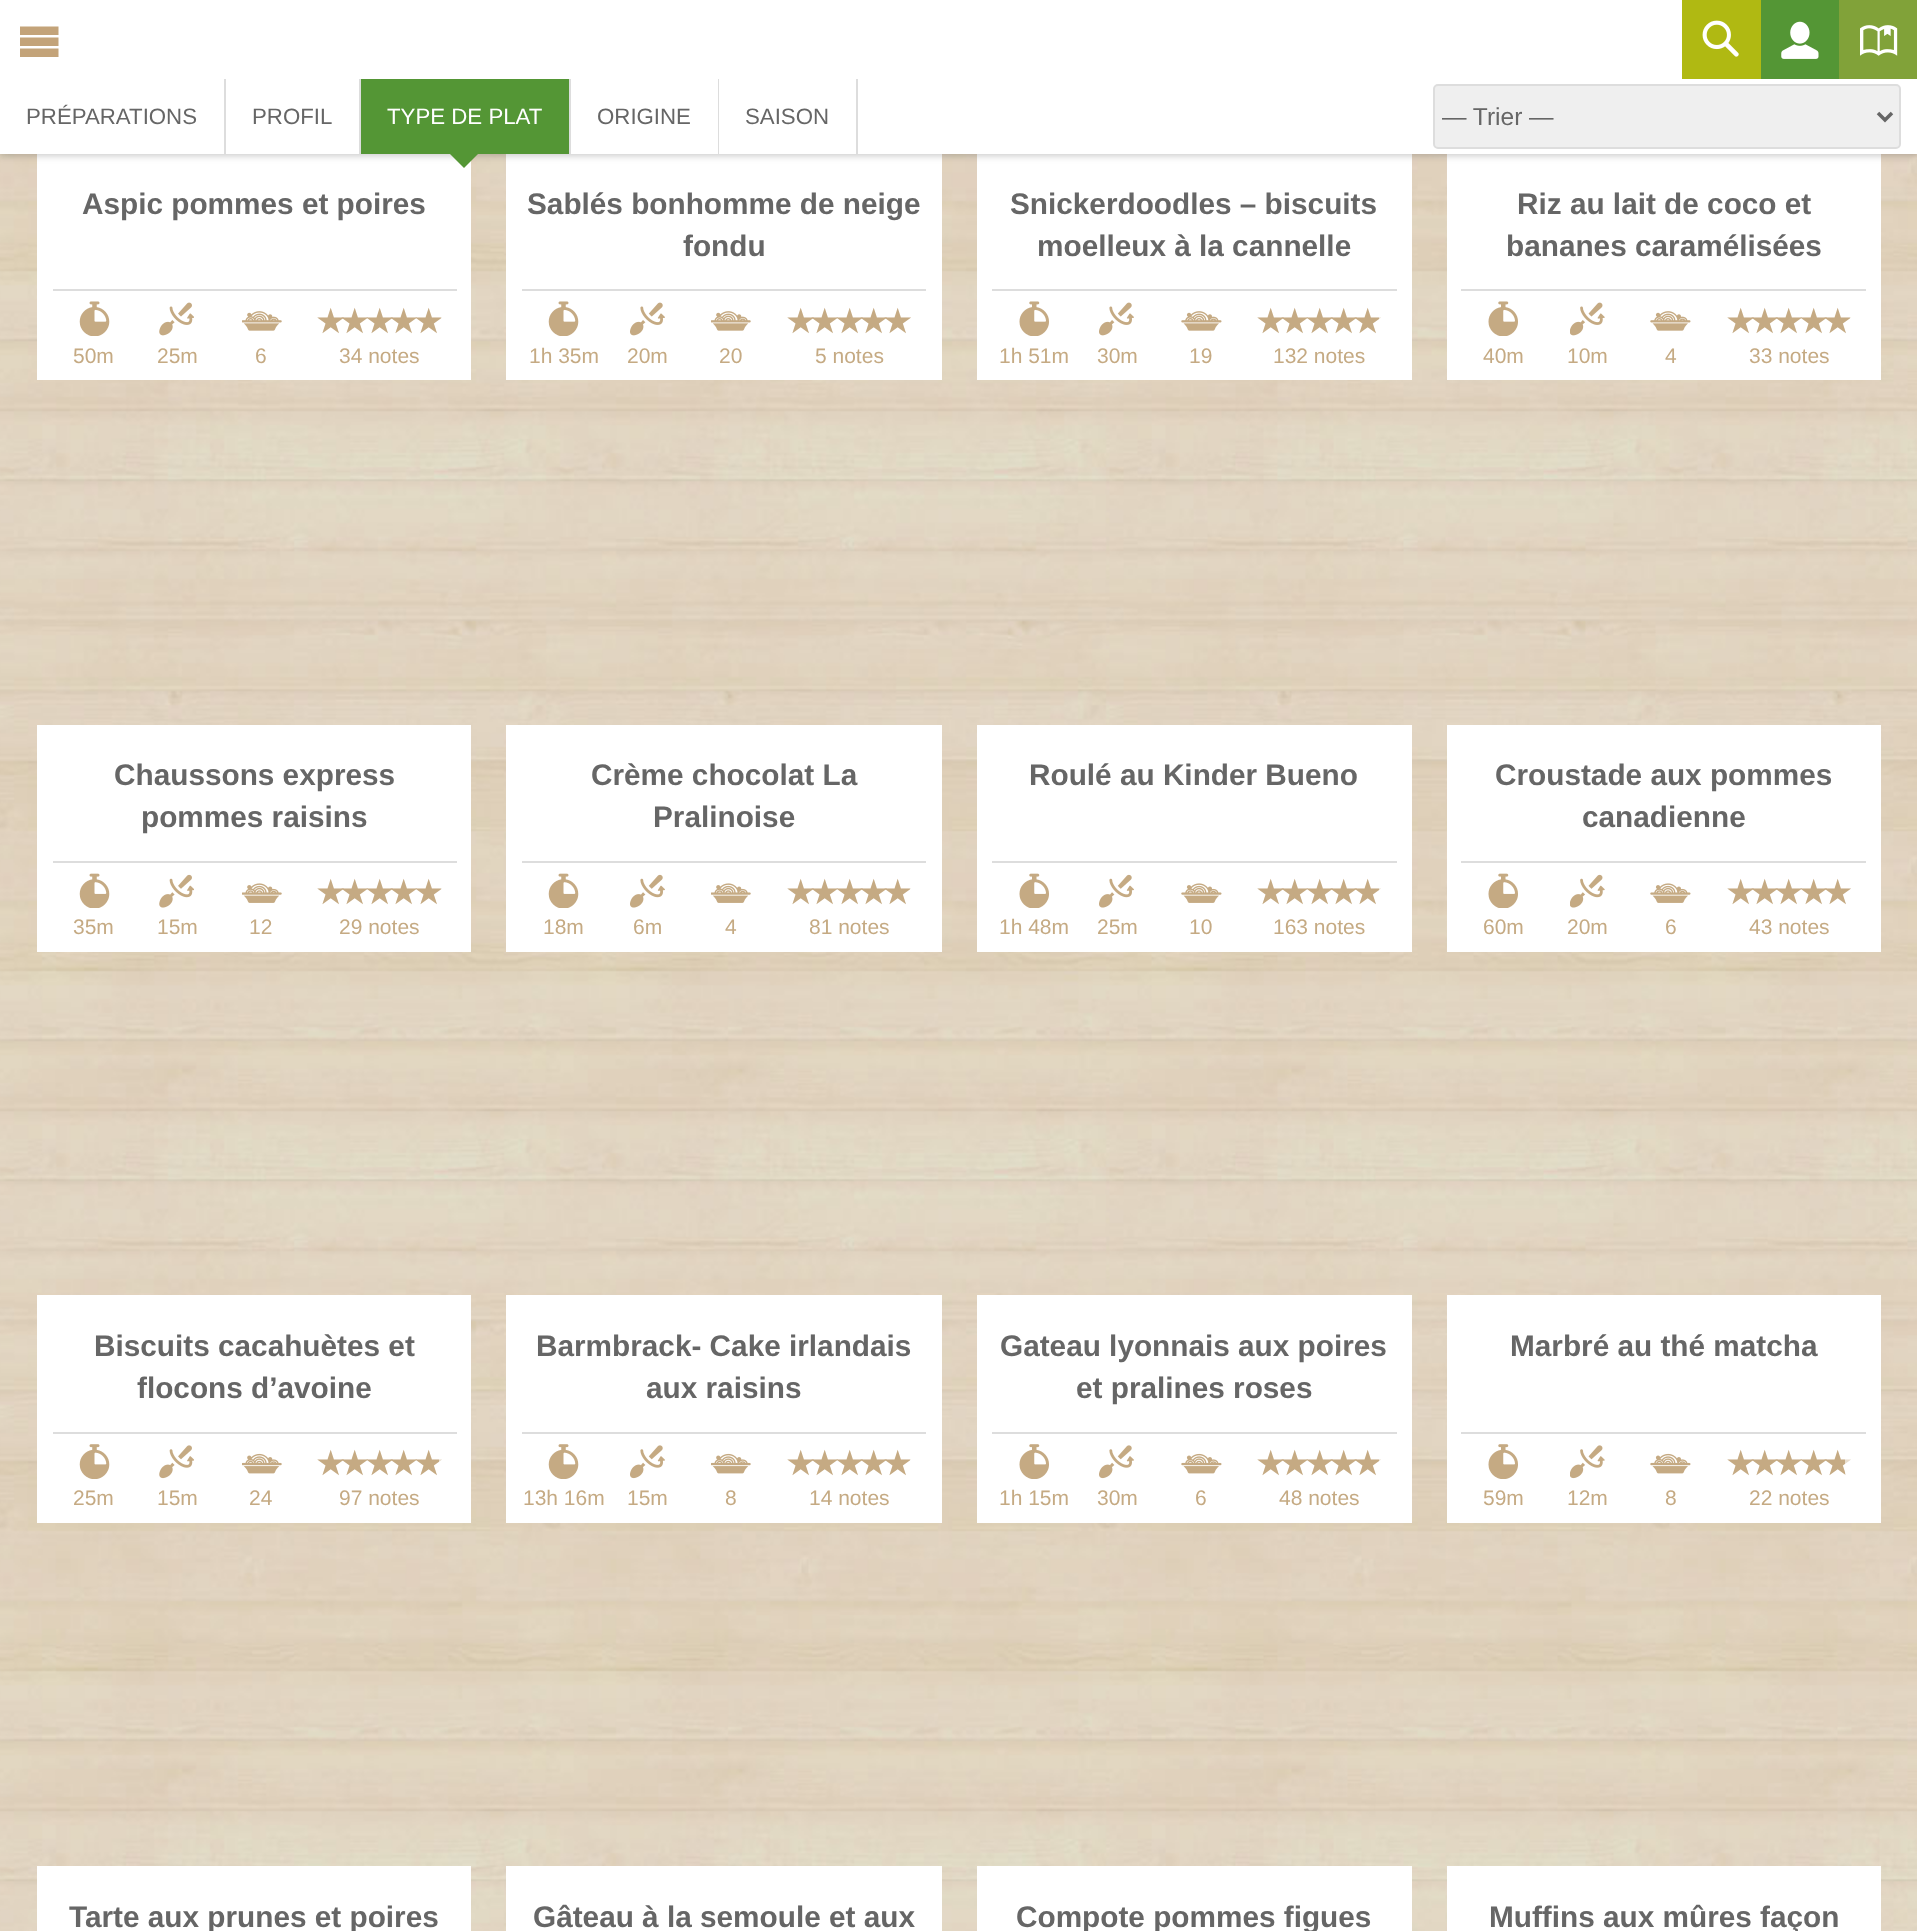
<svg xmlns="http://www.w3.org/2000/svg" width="1917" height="1931">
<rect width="100%" height="100%" fill="#fff"/>
<image x="0" y="154" width="1917" height="1777" href="media/4.png"/>
<rect x="37" y="154" width="434" height="226" fill="#fff"/>
<rect x="506" y="154" width="436" height="226" fill="#fff"/>
<rect x="977" y="154" width="435" height="226" fill="#fff"/>
<rect x="1447" y="154" width="434" height="226" fill="#fff"/>
<rect y="2" width="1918" height="154" fill="#00000033" filter="blur(3.5px)"/>
<rect width="1682" height="79" fill="#fff"/>
<path d="M20 26.5h38.5v8.5h-38.5zm0 11h38.5v8.5h-38.5zm0 11h38.5v8.5h-38.5z" fill="#c3a379"/>
<rect x="1682" width="79" height="79" fill="#b0b912"/>
<image x="1702" y="20" width="37" height="37" href="media/1.png"/>
<rect x="1761" width="78" height="79" fill="#549635"/>
<image x="1781" y="21" width="38" height="38" href="media/2.png"/>
<rect x="1839" width="78" height="79" fill="#81a239"/>
<image x="1860" y="25" width="38" height="31" href="media/3.png"/>
<rect y="79" width="1917" height="75" fill="#fff"/>
<rect x="224" y="79" width="2" height="75" fill="#ddd"/>
<text x="26" y="124" style="font-family:Liberation Sans;font-size:22.25px;fill:#666">PRÉPARATIONS</text>
<rect x="359" y="79" width="2" height="75" fill="#ddd"/>
<text x="252" y="124" style="font-family:Liberation Sans;font-size:22.25px;fill:#666">PROFIL</text>
<rect x="361" y="79" width="208" height="75" fill="#549635"/>
<rect x="569" y="79" width="2" height="75" fill="#ddd"/>
<text x="387" y="124" style="font-family:Liberation Sans;font-size:22.25px;fill:#fff">TYPE DE PLAT</text>
<path d="M450 154h28l-14 14z" fill="#549635"/>
<rect x="718" y="79" width="1" height="75" fill="#ddd"/>
<text x="597" y="124" style="font-family:Liberation Sans;font-size:22.25px;fill:#666">ORIGINE</text>
<rect x="856" y="79" width="2" height="75" fill="#ddd"/>
<text x="745" y="124" style="font-family:Liberation Sans;font-size:22.25px;fill:#666">SAISON</text>
<rect x="1434" y="85" width="466" height="63" rx="4" fill="#efefef" stroke="#ddd" stroke-width="2"/>
<path d="M1878 113l7 7l7-7" fill="none" stroke="#666" stroke-width="3.5"/>
<text x="1442" y="125" style="font-family:Liberation Sans;font-size:24.5px;fill:#666">— Trier —</text>
<text x="82" y="214" style="font-family:Liberation Sans;font-size:29.75px;font-weight:bold;fill:#666">Aspic pommes et poires</text>
<rect x="53" y="289" width="404" height="2" fill="#ddd"/>
<image x="79" y="301" width="31" height="35" href="media/5.png"/>
<text x="73" y="363" style="font-family:Liberation Sans;font-size:21px;fill:#c5aa83">50m</text>
<image x="159" y="302" width="35" height="34" href="media/6.png"/>
<text x="157" y="363" style="font-family:Liberation Sans;font-size:21px;fill:#c5aa83">25m</text>
<image x="242" y="311" width="40" height="20" href="media/7.png"/>
<text x="255" y="363" style="font-family:Liberation Sans;font-size:21px;fill:#c5aa83">6</text>
<text x="315" y="333" style="font-family:DejaVu Sans;font-size:35px;fill:#c5aa83">★</text>
<text x="339" y="333" style="font-family:DejaVu Sans;font-size:35px;fill:#c5aa83">★</text>
<text x="364" y="333" style="font-family:DejaVu Sans;font-size:35px;fill:#c5aa83">★</text>
<text x="388" y="333" style="font-family:DejaVu Sans;font-size:35px;fill:#c5aa83">★</text>
<text x="413" y="333" style="font-family:DejaVu Sans;font-size:35px;fill:#c5aa83">★</text>
<rect x="441" y="317" width="1" height="1" fill="#ffffff99"/>
<text x="339" y="363" style="font-family:Liberation Sans;font-size:21px;fill:#c5aa83">34 notes</text>
<text x="527" y="214" style="font-family:Liberation Sans;font-size:29.75px;font-weight:bold;fill:#666">Sablés bonhomme de neige</text>
<text x="683" y="256" style="font-family:Liberation Sans;font-size:29.75px;font-weight:bold;fill:#666">fondu</text>
<rect x="522" y="289" width="404" height="2" fill="#ddd"/>
<image x="548" y="301" width="31" height="35" href="media/5.png"/>
<text x="529" y="363" style="font-family:Liberation Sans;font-size:21px;fill:#c5aa83">1h 35m</text>
<image x="630" y="302" width="35" height="34" href="media/8.png"/>
<text x="627" y="363" style="font-family:Liberation Sans;font-size:21px;fill:#c5aa83">20m</text>
<image x="711" y="311" width="40" height="20" href="media/7.png"/>
<text x="719" y="363" style="font-family:Liberation Sans;font-size:21px;fill:#c5aa83">20</text>
<text x="785" y="333" style="font-family:DejaVu Sans;font-size:35px;fill:#c5aa83">★</text>
<text x="809" y="333" style="font-family:DejaVu Sans;font-size:35px;fill:#c5aa83">★</text>
<text x="834" y="333" style="font-family:DejaVu Sans;font-size:35px;fill:#c5aa83">★</text>
<text x="858" y="333" style="font-family:DejaVu Sans;font-size:35px;fill:#c5aa83">★</text>
<text x="882" y="333" style="font-family:DejaVu Sans;font-size:35px;fill:#c5aa83">★</text>
<text x="815" y="363" style="font-family:Liberation Sans;font-size:21px;fill:#c5aa83">5 notes</text>
<text x="1010" y="214" style="font-family:Liberation Sans;font-size:29.75px;font-weight:bold;fill:#666">Snickerdoodles – biscuits</text>
<text x="1037" y="256" style="font-family:Liberation Sans;font-size:29.75px;font-weight:bold;fill:#666">moelleux à la cannelle</text>
<rect x="992" y="289" width="405" height="2" fill="#ddd"/>
<image x="1019" y="301" width="30" height="35" href="media/9.png"/>
<text x="999" y="363" style="font-family:Liberation Sans;font-size:21px;fill:#c5aa83">1h 51m</text>
<image x="1099" y="302" width="35" height="34" href="media/8.png"/>
<text x="1097" y="363" style="font-family:Liberation Sans;font-size:21px;fill:#c5aa83">30m</text>
<image x="1181" y="311" width="41" height="20" href="media/10.png"/>
<text x="1189" y="363" style="font-family:Liberation Sans;font-size:21px;fill:#c5aa83">19</text>
<text x="1255" y="333" style="font-family:DejaVu Sans;font-size:35px;fill:#c5aa83">★</text>
<text x="1279" y="333" style="font-family:DejaVu Sans;font-size:35px;fill:#c5aa83">★</text>
<text x="1304" y="333" style="font-family:DejaVu Sans;font-size:35px;fill:#c5aa83">★</text>
<text x="1328" y="333" style="font-family:DejaVu Sans;font-size:35px;fill:#c5aa83">★</text>
<text x="1352" y="333" style="font-family:DejaVu Sans;font-size:35px;fill:#c5aa83">★</text>
<rect x="1379" y="317" width="3" height="3" fill="#ffffff99"/>
<text x="1273" y="363" style="font-family:Liberation Sans;font-size:21px;fill:#c5aa83">132 notes</text>
<text x="1517" y="214" style="font-family:Liberation Sans;font-size:29.75px;font-weight:bold;fill:#666">Riz au lait de coco et</text>
<text x="1506" y="256" style="font-family:Liberation Sans;font-size:29.75px;font-weight:bold;fill:#666">bananes caramélisées</text>
<rect x="1461" y="289" width="405" height="2" fill="#ddd"/>
<image x="1488" y="301" width="30" height="35" href="media/9.png"/>
<text x="1483" y="363" style="font-family:Liberation Sans;font-size:21px;fill:#c5aa83">40m</text>
<image x="1570" y="302" width="35" height="34" href="media/11.png"/>
<text x="1567" y="363" style="font-family:Liberation Sans;font-size:21px;fill:#c5aa83">10m</text>
<image x="1650" y="311" width="41" height="20" href="media/10.png"/>
<text x="1665" y="363" style="font-family:Liberation Sans;font-size:21px;fill:#c5aa83">4</text>
<text x="1725" y="333" style="font-family:DejaVu Sans;font-size:35px;fill:#c5aa83">★</text>
<text x="1749" y="333" style="font-family:DejaVu Sans;font-size:35px;fill:#c5aa83">★</text>
<text x="1773" y="333" style="font-family:DejaVu Sans;font-size:35px;fill:#c5aa83">★</text>
<text x="1798" y="333" style="font-family:DejaVu Sans;font-size:35px;fill:#c5aa83">★</text>
<text x="1822" y="333" style="font-family:DejaVu Sans;font-size:35px;fill:#c5aa83">★</text>
<rect x="1850" y="317" width="2" height="2" fill="#ffffff99"/>
<text x="1749" y="363" style="font-family:Liberation Sans;font-size:21px;fill:#c5aa83">33 notes</text>
<rect x="37" y="725" width="434" height="227" fill="#fff"/>
<text x="114" y="785" style="font-family:Liberation Sans;font-size:29.75px;font-weight:bold;fill:#666">Chaussons express</text>
<text x="141" y="827" style="font-family:Liberation Sans;font-size:29.75px;font-weight:bold;fill:#666">pommes raisins</text>
<rect x="53" y="861" width="404" height="2" fill="#ddd"/>
<image x="79" y="873" width="31" height="35" href="media/12.png"/>
<text x="73" y="934" style="font-family:Liberation Sans;font-size:21px;fill:#c5aa83">35m</text>
<image x="159" y="874" width="35" height="34" href="media/13.png"/>
<text x="157" y="934" style="font-family:Liberation Sans;font-size:21px;fill:#c5aa83">15m</text>
<image x="242" y="883" width="40" height="20" href="media/14.png"/>
<text x="249" y="934" style="font-family:Liberation Sans;font-size:21px;fill:#c5aa83">12</text>
<text x="315" y="904" style="font-family:DejaVu Sans;font-size:35px;fill:#c5aa83">★</text>
<text x="339" y="904" style="font-family:DejaVu Sans;font-size:35px;fill:#c5aa83">★</text>
<text x="364" y="904" style="font-family:DejaVu Sans;font-size:35px;fill:#c5aa83">★</text>
<text x="388" y="904" style="font-family:DejaVu Sans;font-size:35px;fill:#c5aa83">★</text>
<text x="413" y="904" style="font-family:DejaVu Sans;font-size:35px;fill:#c5aa83">★</text>
<rect x="441" y="888" width="1" height="1" fill="#ffffff99"/>
<text x="339" y="934" style="font-family:Liberation Sans;font-size:21px;fill:#c5aa83">29 notes</text>
<rect x="506" y="725" width="436" height="227" fill="#fff"/>
<text x="591" y="785" style="font-family:Liberation Sans;font-size:29.75px;font-weight:bold;fill:#666">Crème chocolat La</text>
<text x="653" y="827" style="font-family:Liberation Sans;font-size:29.75px;font-weight:bold;fill:#666">Pralinoise</text>
<rect x="522" y="861" width="404" height="2" fill="#ddd"/>
<image x="548" y="873" width="31" height="35" href="media/12.png"/>
<text x="543" y="934" style="font-family:Liberation Sans;font-size:21px;fill:#c5aa83">18m</text>
<image x="630" y="874" width="35" height="34" href="media/15.png"/>
<text x="633" y="934" style="font-family:Liberation Sans;font-size:21px;fill:#c5aa83">6m</text>
<image x="711" y="883" width="40" height="20" href="media/14.png"/>
<text x="725" y="934" style="font-family:Liberation Sans;font-size:21px;fill:#c5aa83">4</text>
<text x="785" y="904" style="font-family:DejaVu Sans;font-size:35px;fill:#c5aa83">★</text>
<text x="809" y="904" style="font-family:DejaVu Sans;font-size:35px;fill:#c5aa83">★</text>
<text x="834" y="904" style="font-family:DejaVu Sans;font-size:35px;fill:#c5aa83">★</text>
<text x="858" y="904" style="font-family:DejaVu Sans;font-size:35px;fill:#c5aa83">★</text>
<text x="882" y="904" style="font-family:DejaVu Sans;font-size:35px;fill:#c5aa83">★</text>
<rect x="910" y="888" width="2" height="2" fill="#ffffff99"/>
<text x="809" y="934" style="font-family:Liberation Sans;font-size:21px;fill:#c5aa83">81 notes</text>
<rect x="977" y="725" width="435" height="227" fill="#fff"/>
<text x="1029" y="785" style="font-family:Liberation Sans;font-size:29.75px;font-weight:bold;fill:#666">Roulé au Kinder Bueno</text>
<rect x="992" y="861" width="405" height="2" fill="#ddd"/>
<image x="1019" y="873" width="30" height="35" href="media/16.png"/>
<text x="999" y="934" style="font-family:Liberation Sans;font-size:21px;fill:#c5aa83">1h 48m</text>
<image x="1099" y="874" width="35" height="34" href="media/15.png"/>
<text x="1097" y="934" style="font-family:Liberation Sans;font-size:21px;fill:#c5aa83">25m</text>
<image x="1181" y="883" width="41" height="20" href="media/17.png"/>
<text x="1189" y="934" style="font-family:Liberation Sans;font-size:21px;fill:#c5aa83">10</text>
<text x="1255" y="904" style="font-family:DejaVu Sans;font-size:35px;fill:#c5aa83">★</text>
<text x="1279" y="904" style="font-family:DejaVu Sans;font-size:35px;fill:#c5aa83">★</text>
<text x="1304" y="904" style="font-family:DejaVu Sans;font-size:35px;fill:#c5aa83">★</text>
<text x="1328" y="904" style="font-family:DejaVu Sans;font-size:35px;fill:#c5aa83">★</text>
<text x="1352" y="904" style="font-family:DejaVu Sans;font-size:35px;fill:#c5aa83">★</text>
<rect x="1379" y="888" width="3" height="3" fill="#ffffff99"/>
<text x="1273" y="934" style="font-family:Liberation Sans;font-size:21px;fill:#c5aa83">163 notes</text>
<rect x="1447" y="725" width="434" height="227" fill="#fff"/>
<text x="1495" y="785" style="font-family:Liberation Sans;font-size:29.75px;font-weight:bold;fill:#666">Croustade aux pommes</text>
<text x="1582" y="827" style="font-family:Liberation Sans;font-size:29.75px;font-weight:bold;fill:#666">canadienne</text>
<rect x="1461" y="861" width="405" height="2" fill="#ddd"/>
<image x="1488" y="873" width="30" height="35" href="media/16.png"/>
<text x="1483" y="934" style="font-family:Liberation Sans;font-size:21px;fill:#c5aa83">60m</text>
<image x="1570" y="874" width="35" height="34" href="media/18.png"/>
<text x="1567" y="934" style="font-family:Liberation Sans;font-size:21px;fill:#c5aa83">20m</text>
<image x="1650" y="883" width="41" height="20" href="media/17.png"/>
<text x="1665" y="934" style="font-family:Liberation Sans;font-size:21px;fill:#c5aa83">6</text>
<text x="1725" y="904" style="font-family:DejaVu Sans;font-size:35px;fill:#c5aa83">★</text>
<text x="1749" y="904" style="font-family:DejaVu Sans;font-size:35px;fill:#c5aa83">★</text>
<text x="1773" y="904" style="font-family:DejaVu Sans;font-size:35px;fill:#c5aa83">★</text>
<text x="1798" y="904" style="font-family:DejaVu Sans;font-size:35px;fill:#c5aa83">★</text>
<text x="1822" y="904" style="font-family:DejaVu Sans;font-size:35px;fill:#c5aa83">★</text>
<text x="1749" y="934" style="font-family:Liberation Sans;font-size:21px;fill:#c5aa83">43 notes</text>
<rect x="37" y="1295" width="434" height="228" fill="#fff"/>
<text x="94" y="1356" style="font-family:Liberation Sans;font-size:29.75px;font-weight:bold;fill:#666">Biscuits cacahuètes et</text>
<text x="137" y="1398" style="font-family:Liberation Sans;font-size:29.75px;font-weight:bold;fill:#666">flocons d’avoine</text>
<rect x="53" y="1432" width="404" height="2" fill="#ddd"/>
<image x="79" y="1444" width="31" height="35" href="media/19.png"/>
<text x="73" y="1505" style="font-family:Liberation Sans;font-size:21px;fill:#c5aa83">25m</text>
<image x="159" y="1445" width="35" height="34" href="media/20.png"/>
<text x="157" y="1505" style="font-family:Liberation Sans;font-size:21px;fill:#c5aa83">15m</text>
<image x="242" y="1453" width="40" height="21" href="media/21.png"/>
<text x="249" y="1505" style="font-family:Liberation Sans;font-size:21px;fill:#c5aa83">24</text>
<text x="315" y="1475" style="font-family:DejaVu Sans;font-size:35px;fill:#c5aa83">★</text>
<text x="339" y="1475" style="font-family:DejaVu Sans;font-size:35px;fill:#c5aa83">★</text>
<text x="364" y="1475" style="font-family:DejaVu Sans;font-size:35px;fill:#c5aa83">★</text>
<text x="388" y="1475" style="font-family:DejaVu Sans;font-size:35px;fill:#c5aa83">★</text>
<text x="413" y="1475" style="font-family:DejaVu Sans;font-size:35px;fill:#c5aa83">★</text>
<rect x="439" y="1459" width="3" height="3" fill="#ffffff99"/>
<text x="339" y="1505" style="font-family:Liberation Sans;font-size:21px;fill:#c5aa83">97 notes</text>
<rect x="506" y="1295" width="436" height="228" fill="#fff"/>
<text x="536" y="1356" style="font-family:Liberation Sans;font-size:29.75px;font-weight:bold;fill:#666">Barmbrack- Cake irlandais</text>
<text x="646" y="1398" style="font-family:Liberation Sans;font-size:29.75px;font-weight:bold;fill:#666">aux raisins</text>
<rect x="522" y="1432" width="404" height="2" fill="#ddd"/>
<image x="548" y="1444" width="31" height="35" href="media/19.png"/>
<text x="523" y="1505" style="font-family:Liberation Sans;font-size:21px;fill:#c5aa83">13h 16m</text>
<image x="630" y="1445" width="35" height="34" href="media/22.png"/>
<text x="627" y="1505" style="font-family:Liberation Sans;font-size:21px;fill:#c5aa83">15m</text>
<image x="711" y="1453" width="40" height="21" href="media/21.png"/>
<text x="725" y="1505" style="font-family:Liberation Sans;font-size:21px;fill:#c5aa83">8</text>
<text x="785" y="1475" style="font-family:DejaVu Sans;font-size:35px;fill:#c5aa83">★</text>
<text x="809" y="1475" style="font-family:DejaVu Sans;font-size:35px;fill:#c5aa83">★</text>
<text x="834" y="1475" style="font-family:DejaVu Sans;font-size:35px;fill:#c5aa83">★</text>
<text x="858" y="1475" style="font-family:DejaVu Sans;font-size:35px;fill:#c5aa83">★</text>
<text x="882" y="1475" style="font-family:DejaVu Sans;font-size:35px;fill:#c5aa83">★</text>
<rect x="910" y="1459" width="2" height="2" fill="#ffffff99"/>
<text x="809" y="1505" style="font-family:Liberation Sans;font-size:21px;fill:#c5aa83">14 notes</text>
<rect x="977" y="1295" width="435" height="228" fill="#fff"/>
<text x="1000" y="1356" style="font-family:Liberation Sans;font-size:29.75px;font-weight:bold;fill:#666">Gateau lyonnais aux poires</text>
<text x="1076" y="1398" style="font-family:Liberation Sans;font-size:29.75px;font-weight:bold;fill:#666">et pralines roses</text>
<rect x="992" y="1432" width="405" height="2" fill="#ddd"/>
<image x="1019" y="1444" width="30" height="35" href="media/23.png"/>
<text x="999" y="1505" style="font-family:Liberation Sans;font-size:21px;fill:#c5aa83">1h 15m</text>
<image x="1099" y="1445" width="35" height="34" href="media/22.png"/>
<text x="1097" y="1505" style="font-family:Liberation Sans;font-size:21px;fill:#c5aa83">30m</text>
<image x="1181" y="1453" width="41" height="21" href="media/24.png"/>
<text x="1195" y="1505" style="font-family:Liberation Sans;font-size:21px;fill:#c5aa83">6</text>
<text x="1255" y="1475" style="font-family:DejaVu Sans;font-size:35px;fill:#c5aa83">★</text>
<text x="1279" y="1475" style="font-family:DejaVu Sans;font-size:35px;fill:#c5aa83">★</text>
<text x="1304" y="1475" style="font-family:DejaVu Sans;font-size:35px;fill:#c5aa83">★</text>
<text x="1328" y="1475" style="font-family:DejaVu Sans;font-size:35px;fill:#c5aa83">★</text>
<text x="1352" y="1475" style="font-family:DejaVu Sans;font-size:35px;fill:#c5aa83">★</text>
<rect x="1379" y="1459" width="3" height="3" fill="#ffffff99"/>
<text x="1279" y="1505" style="font-family:Liberation Sans;font-size:21px;fill:#c5aa83">48 notes</text>
<rect x="1447" y="1295" width="434" height="228" fill="#fff"/>
<text x="1510" y="1356" style="font-family:Liberation Sans;font-size:29.75px;font-weight:bold;fill:#666">Marbré au thé matcha</text>
<rect x="1461" y="1432" width="405" height="2" fill="#ddd"/>
<image x="1488" y="1444" width="30" height="35" href="media/23.png"/>
<text x="1483" y="1505" style="font-family:Liberation Sans;font-size:21px;fill:#c5aa83">59m</text>
<image x="1570" y="1445" width="35" height="34" href="media/25.png"/>
<text x="1567" y="1505" style="font-family:Liberation Sans;font-size:21px;fill:#c5aa83">12m</text>
<image x="1650" y="1453" width="41" height="21" href="media/24.png"/>
<text x="1665" y="1505" style="font-family:Liberation Sans;font-size:21px;fill:#c5aa83">8</text>
<text x="1725" y="1475" style="font-family:DejaVu Sans;font-size:35px;fill:#c5aa83">★</text>
<text x="1749" y="1475" style="font-family:DejaVu Sans;font-size:35px;fill:#c5aa83">★</text>
<text x="1773" y="1475" style="font-family:DejaVu Sans;font-size:35px;fill:#c5aa83">★</text>
<text x="1798" y="1475" style="font-family:DejaVu Sans;font-size:35px;fill:#c5aa83">★</text>
<text x="1822" y="1475" style="font-family:DejaVu Sans;font-size:35px;fill:#c5aa83">★</text>
<rect x="1845" y="1459" width="7" height="18" fill="#ffffff99"/>
<text x="1749" y="1505" style="font-family:Liberation Sans;font-size:21px;fill:#c5aa83">22 notes</text>
<rect x="37" y="1866" width="434" height="65" fill="#fff"/>
<text x="69" y="1927" style="font-family:Liberation Sans;font-size:29.75px;font-weight:bold;fill:#666">Tarte aux prunes et poires</text>
<rect x="506" y="1866" width="436" height="65" fill="#fff"/>
<text x="533" y="1927" style="font-family:Liberation Sans;font-size:29.75px;font-weight:bold;fill:#666">Gâteau à la semoule et aux</text>
<rect x="977" y="1866" width="435" height="65" fill="#fff"/>
<text x="1016" y="1927" style="font-family:Liberation Sans;font-size:29.75px;font-weight:bold;fill:#666">Compote pommes figues</text>
<rect x="1447" y="1866" width="434" height="65" fill="#fff"/>
<text x="1489" y="1927" style="font-family:Liberation Sans;font-size:29.75px;font-weight:bold;fill:#666">Muffins aux mûres façon</text>
</svg>
